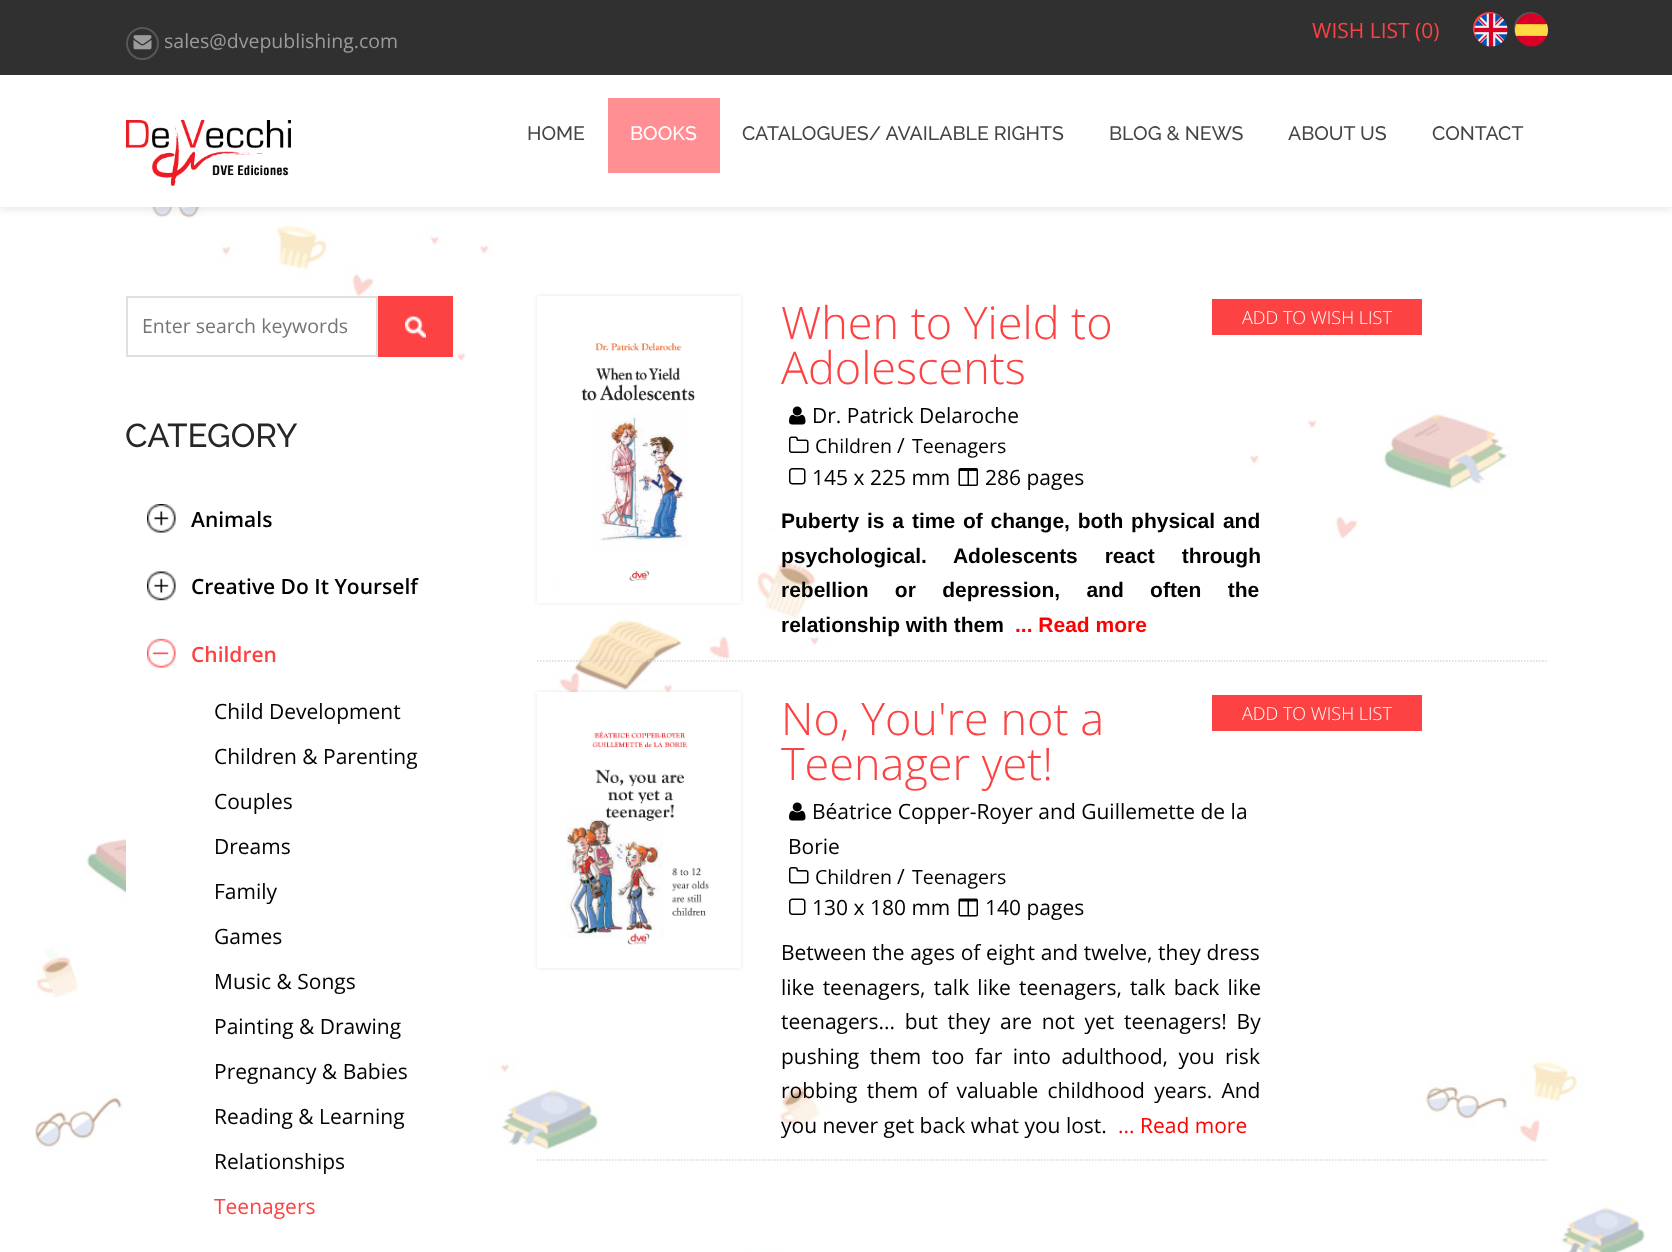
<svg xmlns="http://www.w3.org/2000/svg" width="1672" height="1252">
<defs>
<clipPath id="clip1"><path d="M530 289h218v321h-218zm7 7h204v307h-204z" clip-rule="evenodd"/></clipPath>
<clipPath id="clip2"><path d="M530 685h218v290h-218zm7 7h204v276h-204z" clip-rule="evenodd"/></clipPath>
</defs>
<rect width="100%" height="100%" fill="#fff"/>
<image x="35" y="207" width="1610" height="1045" href="media/1.png"/>
<rect y="77" width="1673" height="132" fill="#0000001a" filter="blur(4px)"/>
<rect width="1672" height="75" fill="#303030"/>
<circle cx="142.5" cy="43.5" r="15.5" fill="none" stroke="#575757" stroke-width="2"/>
<image x="133" y="35" width="19" height="15" href="media/2.png"/>
<text x="164" y="48" style="font-family:Open Sans;font-size:19.5px;fill:#9b9b9b">sales@dvepublishing.com</text>
<text x="1312" y="38" style="font-family:Open Sans;font-size:21px;fill:#fc4242">WISH LIST (0)</text>
<circle cx="1489.5" cy="28.5" r="15.5" fill="#fc4242" stroke="#fc4242" stroke-width="2"/>
<image x="1474" y="13" width="34" height="34" href="media/3.png"/>
<circle cx="1530.5" cy="28.5" r="15.5" fill="none" stroke="#575757" stroke-width="2"/>
<image x="1515" y="13" width="33" height="34" href="media/4.png"/>
<rect y="75" width="1672" height="132" fill="#fff"/>
<image x="126" y="120" width="165" height="66" href="media/5.png"/>
<text x="527" y="140" style="font-family:Raleway;font-size:19.5px;font-weight:500;fill:#454545">HOME</text>
<rect x="608" y="98" width="112" height="75" fill="#ff8f93"/>
<text x="630" y="140" style="font-family:Raleway;font-size:19.5px;font-weight:500;fill:#fff">BOOKS</text>
<text x="742" y="140" style="font-family:Raleway;font-size:19.5px;font-weight:500;fill:#454545">CATALOGUES/ AVAILABLE RIGHTS</text>
<text x="1109" y="140" style="font-family:Raleway;font-size:19.5px;font-weight:500;fill:#454545">BLOG &amp; NEWS</text>
<text x="1288" y="140" style="font-family:Raleway;font-size:19.5px;font-weight:500;fill:#454545">ABOUT US</text>
<text x="1432" y="140" style="font-family:Raleway;font-size:19.5px;font-weight:500;fill:#454545">CONTACT</text>
<rect x="313" y="298" width="54" height="34" fill="#fff"/>
<rect x="127" y="297" width="250" height="59" fill="none" stroke="#e0e0e0" stroke-width="2"/>
<text x="142" y="333" style="font-family:Open Sans;font-size:19.5px;fill:#757575">Enter search keywords</text>
<rect x="378" y="296" width="75" height="61" fill="#fc4242"/>
<image x="405" y="316" width="21" height="22" href="media/6.png"/>
<text x="125" y="447" style="font-family:Raleway;font-size:33px;font-weight:500;fill:#272727">CATEGORY</text>
<image x="147" y="504" width="29" height="29" href="media/7.png"/>
<text x="191" y="527" style="font-family:Open Sans;font-size:21px;font-weight:600;fill:#000">Animals</text>
<image x="147" y="571" width="29" height="30" href="media/8.png"/>
<text x="191" y="594" style="font-family:Open Sans;font-size:21px;font-weight:600;fill:#000">Creative Do It Yourself</text>
<image x="147" y="638" width="29" height="30" href="media/9.png"/>
<text x="191" y="662" style="font-family:Open Sans;font-size:21px;font-weight:600;fill:#fc4242">Children</text>
<rect x="126" y="828" width="102" height="312" fill="#fff"/>
<text x="214" y="719" style="font-family:Open Sans;font-size:21px;fill:#000">Child Development</text>
<text x="214" y="764" style="font-family:Open Sans;font-size:21px;fill:#000">Children &amp; Parenting</text>
<text x="214" y="809" style="font-family:Open Sans;font-size:21px;fill:#000">Couples</text>
<text x="214" y="854" style="font-family:Open Sans;font-size:21px;fill:#000">Dreams</text>
<text x="214" y="899" style="font-family:Open Sans;font-size:21px;fill:#000">Family</text>
<text x="214" y="944" style="font-family:Open Sans;font-size:21px;fill:#000">Games</text>
<text x="214" y="989" style="font-family:Open Sans;font-size:21px;fill:#000">Music &amp; Songs</text>
<text x="214" y="1034" style="font-family:Open Sans;font-size:21px;fill:#000">Painting &amp; Drawing</text>
<text x="214" y="1079" style="font-family:Open Sans;font-size:21px;fill:#000">Pregnancy &amp; Babies</text>
<text x="214" y="1124" style="font-family:Open Sans;font-size:21px;fill:#000">Reading &amp; Learning</text>
<text x="214" y="1169" style="font-family:Open Sans;font-size:21px;fill:#000">Relationships</text>
<text x="214" y="1214" style="font-family:Open Sans;font-size:21px;fill:#fc4242">Teenagers</text>
<g clip-path="url(#clip1)">
<rect x="537" y="296" width="204" height="307" fill="#0000001a" filter="blur(2px)"/>
</g>
<image x="552" y="343" width="143" height="238" href="media/10.png"/>
<text x="781" y="339" style="font-family:Open Sans;font-size:45px;font-weight:300;fill:#fc4242">When to Yield to</text>
<text x="781" y="384" style="font-family:Open Sans;font-size:45px;font-weight:300;fill:#fc4242">Adolescents</text>
<rect x="1212" y="299" width="210" height="36" fill="#fc4242"/>
<text x="1242" y="324" style="font-family:Open Sans;font-size:18px;font-weight:300;fill:#fff">ADD TO WISH LIST</text>
<image x="789" y="406" width="17" height="19" href="media/11.png"/>
<text x="812" y="423" style="font-family:Open Sans;font-size:21px;fill:#000">Dr. Patrick Delaroche</text>
<image x="789" y="436" width="20" height="17" href="media/12.png"/>
<text x="815" y="453" style="font-family:Open Sans;font-size:19.5px;fill:#000">Children</text>
<text x="897" y="453" style="font-family:Open Sans;font-size:21px;fill:#000">/</text>
<text x="912" y="453" style="font-family:Open Sans;font-size:19.5px;fill:#000">Teenagers</text>
<image x="789" y="468" width="17" height="17" href="media/13.png"/>
<text x="812" y="485" style="font-family:Open Sans;font-size:21px;fill:#000">145 x 225 mm</text>
<image x="958" y="468" width="20" height="18" href="media/14.png"/>
<text x="985" y="485" style="font-family:Open Sans;font-size:21px;fill:#000">286 pages</text>
<text x="781" y="528" word-spacing="2" style="font-family:Liberation Sans;font-size:21px;font-weight:bold;fill:#000">Puberty is a time of change, both physical and</text>
<text x="781" y="563" word-spacing="21" style="font-family:Liberation Sans;font-size:21px;font-weight:bold;fill:#000">psychological. Adolescents react through</text>
<text x="781" y="597" word-spacing="20.5" style="font-family:Liberation Sans;font-size:21px;font-weight:bold;fill:#000">rebellion or depression, and often the</text>
<text x="781" y="632" style="font-family:Liberation Sans;font-size:21px;font-weight:bold;fill:#000">relationship with them</text>
<text x="1015" y="632" style="font-family:Liberation Sans;font-size:21px;font-weight:bold;fill:#f00">... Read more</text>
<path d="M537 661h1009.5" fill="none" stroke="#d7d7d7" stroke-width="1.5" stroke-dasharray="1.5 1.5"/>
<g clip-path="url(#clip2)">
<rect x="537" y="692" width="204" height="276" fill="#0000001a" filter="blur(2px)"/>
</g>
<rect x="542.5" y="697.5" width="193" height="265" fill="none" stroke="#fff" stroke-width="11"/>
<image x="566" y="731" width="143" height="214" href="media/15.png"/>
<text x="781" y="735" style="font-family:Open Sans;font-size:45px;font-weight:300;fill:#fc4242">No, You're not a</text>
<text x="781" y="780" style="font-family:Open Sans;font-size:45px;font-weight:300;fill:#fc4242">Teenager yet!</text>
<rect x="1212" y="695" width="210" height="36" fill="#fc4242"/>
<text x="1242" y="720" style="font-family:Open Sans;font-size:18px;font-weight:300;fill:#fff">ADD TO WISH LIST</text>
<image x="789" y="802" width="17" height="19" href="media/11.png"/>
<text x="812" y="819" style="font-family:Open Sans;font-size:21px;fill:#000">Béatrice Copper-Royer and Guillemette de la</text>
<text x="788" y="854" style="font-family:Open Sans;font-size:21px;fill:#000">Borie</text>
<image x="789" y="867" width="20" height="17" href="media/16.png"/>
<text x="815" y="884" style="font-family:Open Sans;font-size:19.5px;fill:#000">Children</text>
<text x="897" y="884" style="font-family:Open Sans;font-size:21px;fill:#000">/</text>
<text x="912" y="884" style="font-family:Open Sans;font-size:19.5px;fill:#000">Teenagers</text>
<image x="789" y="898" width="17" height="17" href="media/17.png"/>
<text x="812" y="915" style="font-family:Open Sans;font-size:21px;fill:#000">130 x 180 mm</text>
<image x="958" y="898" width="20" height="19" href="media/18.png"/>
<text x="985" y="915" style="font-family:Open Sans;font-size:21px;fill:#000">140 pages</text>
<text x="781" y="960" word-spacing="0.25" style="font-family:Open Sans;font-size:21px;fill:#000">Between the ages of eight and twelve, they dress</text>
<text x="781" y="995" word-spacing="2.75" style="font-family:Open Sans;font-size:21px;fill:#000">like teenagers, talk like teenagers, talk back like</text>
<text x="781" y="1029" word-spacing="4.25" style="font-family:Open Sans;font-size:21px;fill:#000">teenagers... but they are not yet teenagers! By</text>
<text x="781" y="1064" word-spacing="5" style="font-family:Open Sans;font-size:21px;fill:#000">pushing them too far into adulthood, you risk</text>
<text x="781" y="1098" word-spacing="3.75" style="font-family:Open Sans;font-size:21px;fill:#000">robbing them of valuable childhood years. And</text>
<text x="781" y="1133" style="font-family:Open Sans;font-size:21px;fill:#000">you never get back what you lost.</text>
<text x="1118" y="1133" style="font-family:Open Sans;font-size:21px;fill:#f00">... Read more</text>
<path d="M537 1160h1009.5" fill="none" stroke="#d7d7d7" stroke-width="1.5" stroke-dasharray="1.5 1.5"/>
</svg>
